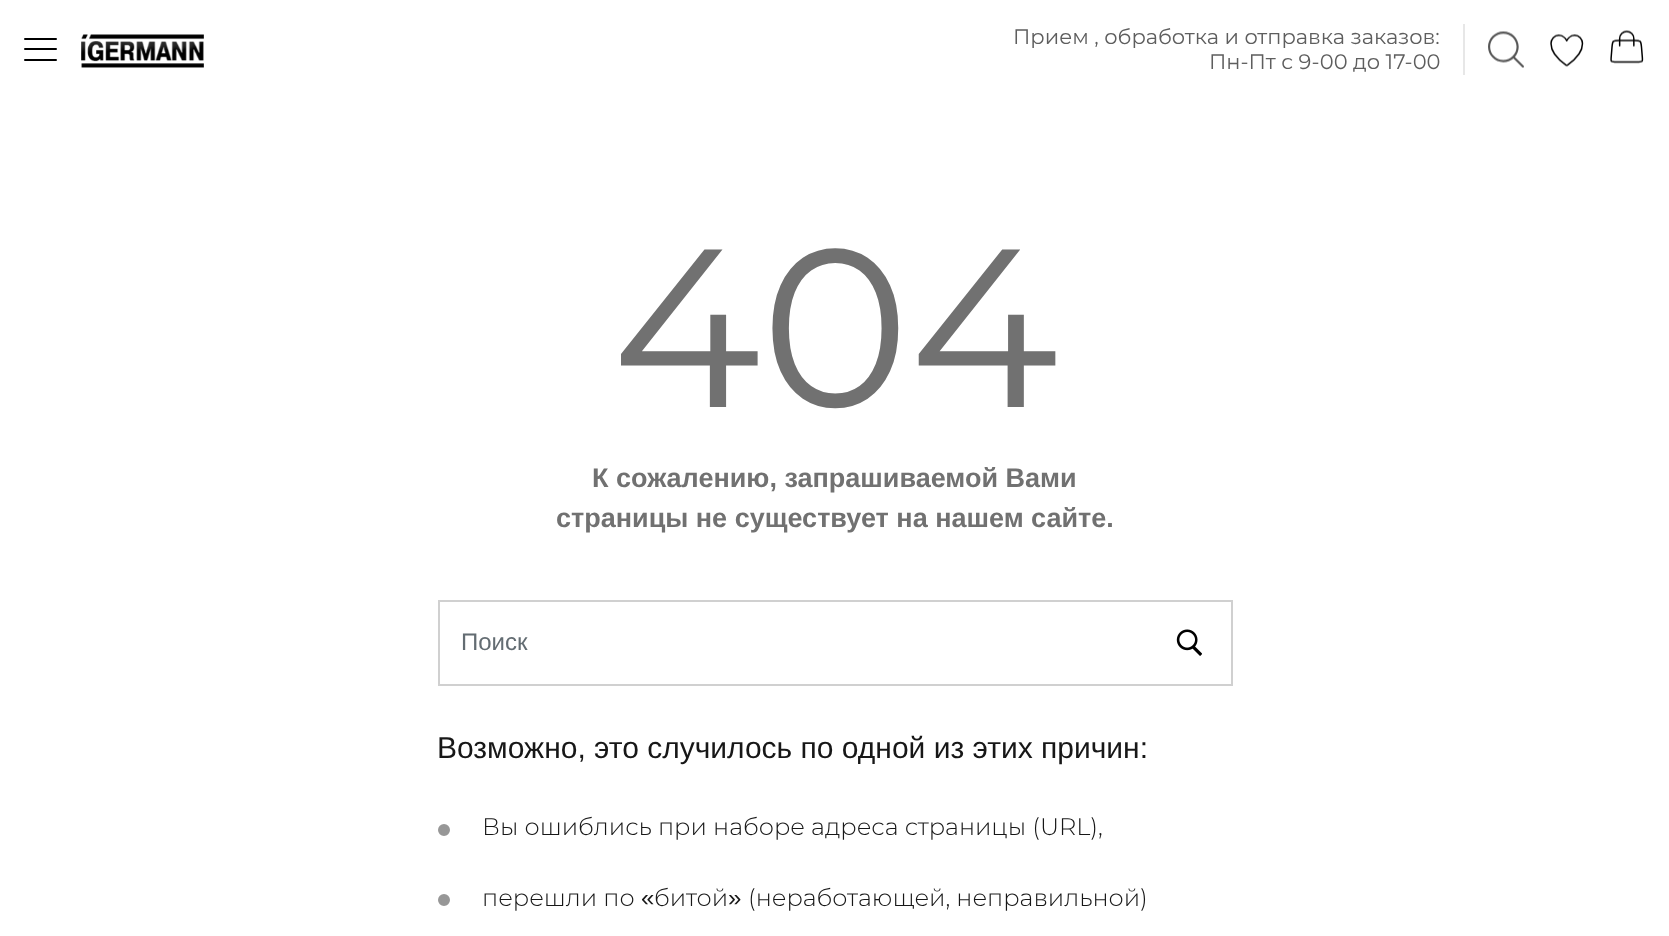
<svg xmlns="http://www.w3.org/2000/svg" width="1669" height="936">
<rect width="100%" height="100%" fill="#fff"/>
<rect x="24" y="38" width="33" height="2" rx="1" fill="#000"/>
<rect x="24" y="48" width="33" height="2" rx="1" fill="#000"/>
<rect x="24" y="59" width="33" height="2" rx="1" fill="#000"/>
<image x="81" y="34" width="123" height="34" href="media/1.png"/>
<rect x="1463" y="24" width="2" height="51" fill="#e7e7e7"/>
<text x="1013" y="44" style="font-family:Montserrat;font-size:21px;fill:#5e5e5e">Прием , обработка и отправка заказов:</text>
<text x="1209" y="69" style="font-family:Montserrat;font-size:21px;fill:#5e5e5e">Пн-Пт с 9-00 до 17-00</text>
<image x="1488" y="31" width="36" height="37" href="media/2.png"/>
<image x="1550" y="34" width="34" height="33" href="media/3.png"/>
<image x="1610" y="30" width="34" height="34" href="media/4.png"/>
<text x="612" y="407" style="font-family:Montserrat;font-size:225px;fill:#717171">404</text>
<text x="592" y="487" style="font-family:Liberation Sans;font-size:27px;font-weight:bold;fill:#717171">К сожалению, запрашиваемой Вами</text>
<text x="556" y="527" style="font-family:Liberation Sans;font-size:27px;font-weight:bold;fill:#717171">страницы не существует на нашем сайте.</text>
<rect x="439" y="601" width="793" height="84" fill="none" stroke="#d0d0d0" stroke-width="2"/>
<text x="461" y="650" style="font-family:Liberation Sans;font-size:24px;fill:#636c72">Поиск</text>
<image x="1176" y="629" width="26" height="27" href="media/5.png"/>
<text x="437" y="758" style="font-family:Liberation Sans;font-size:30px;fill:#171717">Возможно, это случилось по одной из этих причин:</text>
<circle cx="444" cy="830" r="4.5" fill="#979797" stroke="#979797" stroke-width="3"/>
<text x="482" y="835" style="font-family:Montserrat;font-size:24px;font-weight:300;fill:#171717">Вы ошиблись при наборе адреса страницы (URL),</text>
<circle cx="444" cy="900" r="4.5" fill="#979797" stroke="#979797" stroke-width="3"/>
<text x="482" y="906" style="font-family:Montserrat;font-size:24px;font-weight:300;fill:#171717">перешли по</text>
<text x="641" y="906" style="font-family:Liberation Sans;font-size:24px;fill:#171717">«</text>
<text x="654" y="906" style="font-family:Montserrat;font-size:24px;font-weight:300;fill:#171717">битой</text>
<text x="728" y="906" style="font-family:Liberation Sans;font-size:24px;fill:#171717">»</text>
<text x="748" y="906" style="font-family:Montserrat;font-size:24px;font-weight:300;fill:#171717">(неработающей, неправильной)</text>
</svg>
